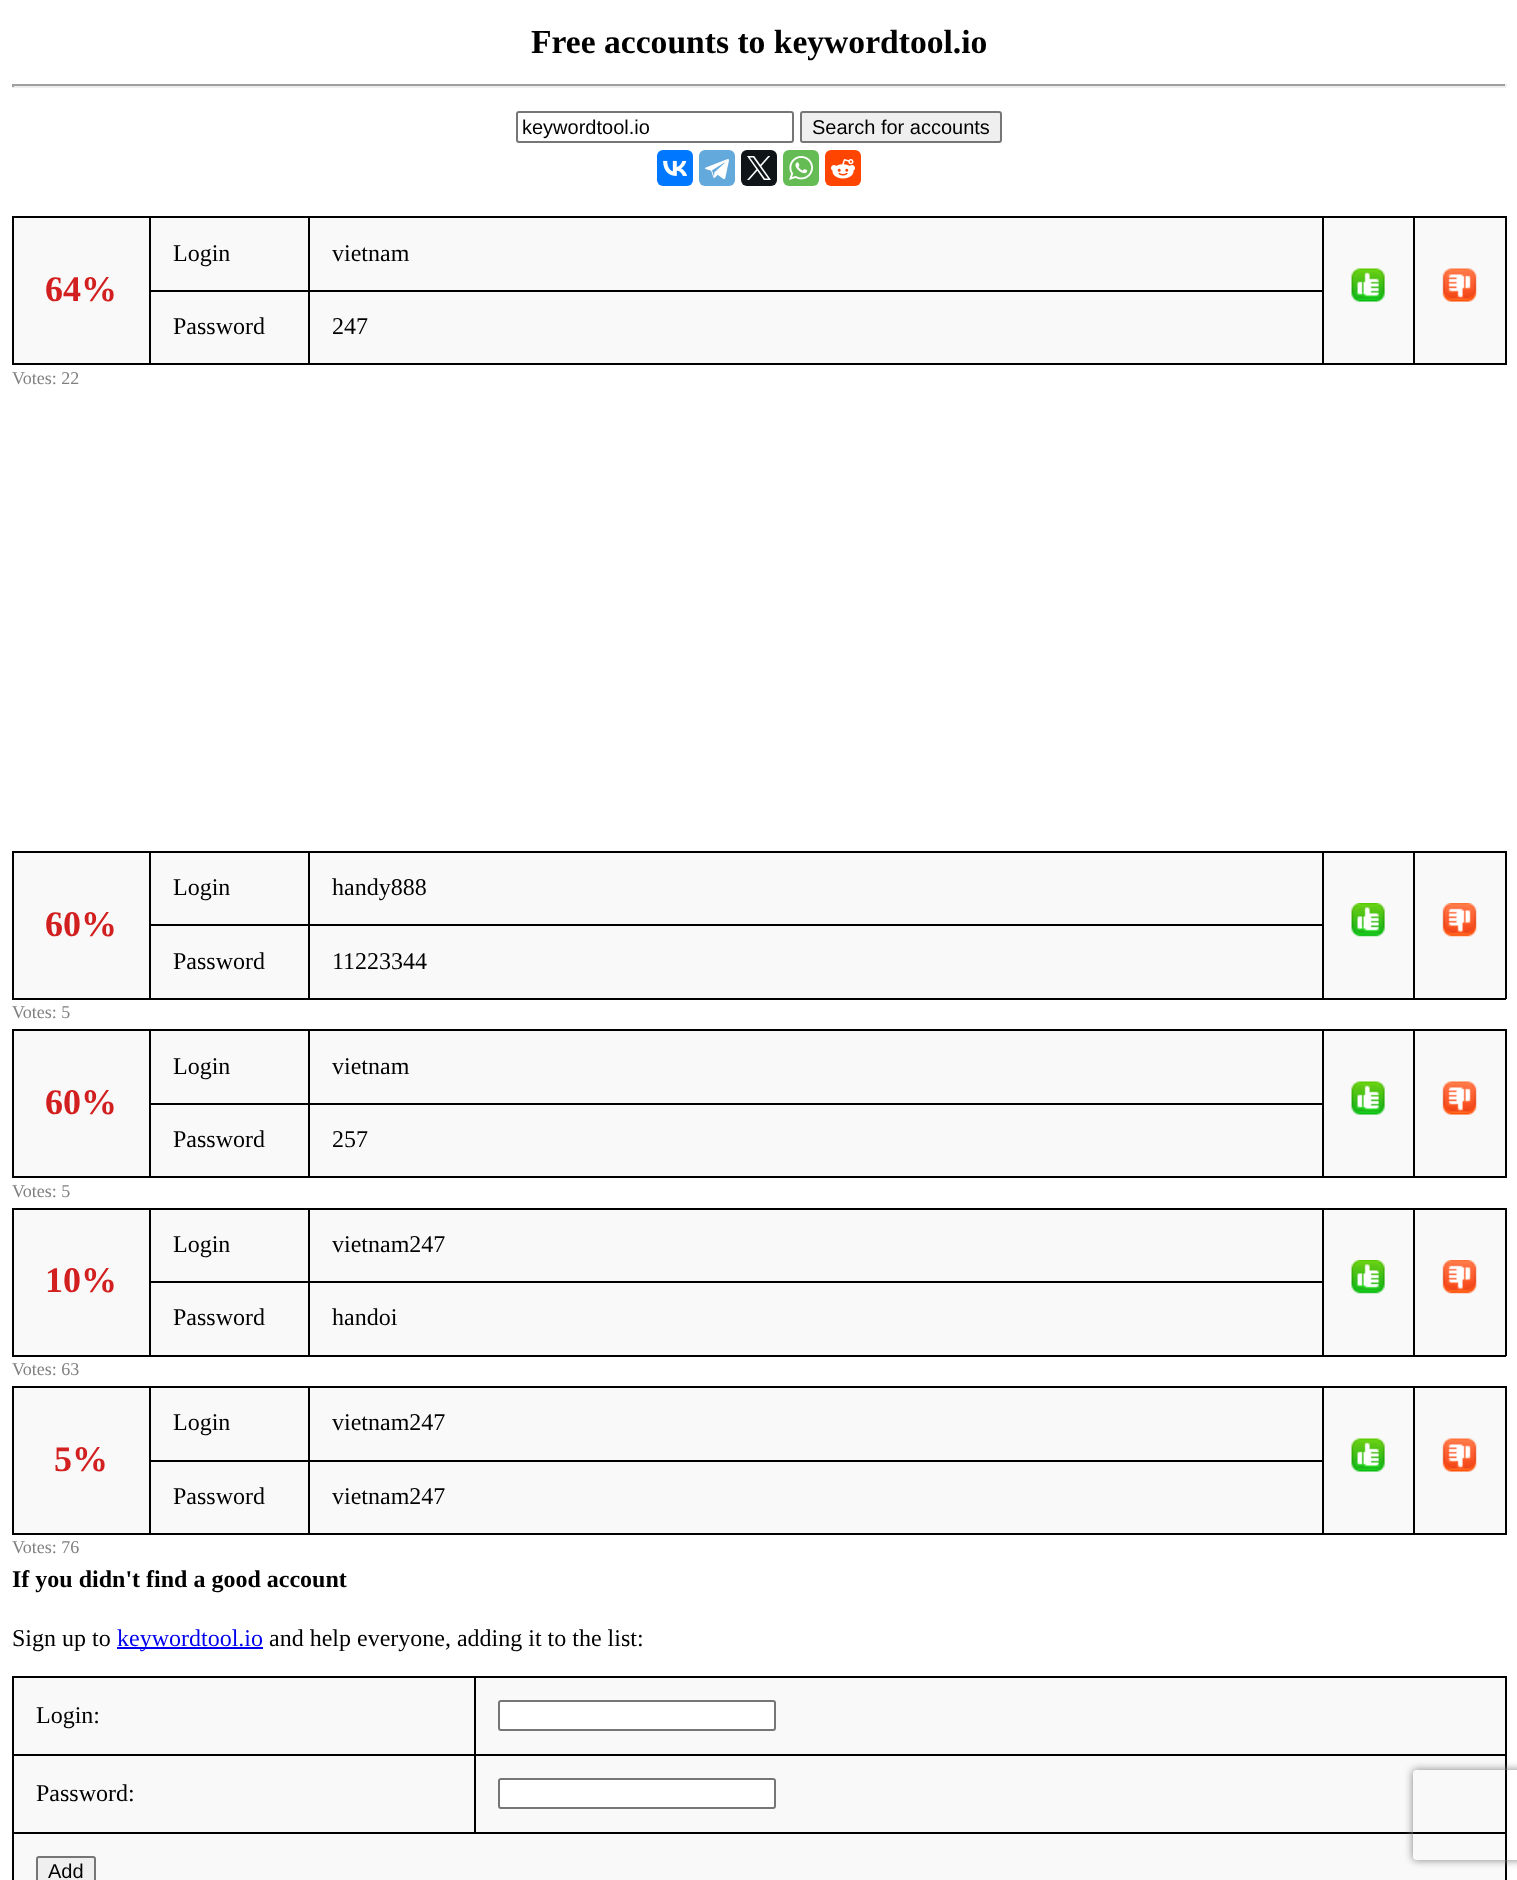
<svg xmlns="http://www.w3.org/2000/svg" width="1517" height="1880">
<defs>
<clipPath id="clip1"><path d="M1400 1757h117v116h-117zm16 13h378c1.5 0 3 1.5 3 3v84c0 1.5-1.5 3-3 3h-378c-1.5 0-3-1.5-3-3v-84c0-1.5 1.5-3 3-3z" clip-rule="evenodd"/></clipPath>
</defs>
<rect width="100%" height="100%" fill="#fff"/>
<text x="531" y="53" style="font-family:Liberation Serif;font-size:33.6px;font-weight:bold;fill:#000">Free accounts to keywordtool.io</text>
<rect x="12" y="84" width="1494" height="2" fill="#9f9f9f"/>
<rect x="1505" y="84" width="2" height="3" fill="#eee"/>
<rect x="12" y="86" width="1494" height="2" fill="#eee"/>
<rect x="12" y="84" width="2" height="3" fill="#9f9f9f"/>
<rect x="517" y="112" width="276" height="30" rx="2" fill="none" stroke="#767676" stroke-width="2"/>
<text x="522" y="134" style="font-family:Liberation Sans;font-size:20px;fill:#000">keywordtool.io</text>
<rect x="801" y="112" width="200" height="30" rx="2" fill="#efefef" stroke="#767676" stroke-width="2"/>
<text x="812" y="134" style="font-family:Liberation Sans;font-size:20px;fill:#000">Search for accounts</text>
<rect x="657" y="150" width="36" height="36" rx="6" fill="#07f"/>
<image x="663" y="160" width="24" height="16" href="media/1.png"/>
<rect x="699" y="150" width="36" height="36" rx="6" fill="#64a9dc"/>
<image x="705" y="159" width="24" height="21" href="media/2.png"/>
<rect x="741" y="150" width="36" height="36" rx="6" fill="#0f1419"/>
<image x="747" y="156" width="24" height="24" href="media/3.png"/>
<rect x="783" y="150" width="36" height="36" rx="6" fill="#65bc54"/>
<image x="789" y="156" width="24" height="24" href="media/4.png"/>
<rect x="825" y="150" width="36" height="36" rx="6" fill="#ff4500"/>
<image x="831" y="159" width="24" height="20" href="media/5.png"/>
<rect x="14" y="218" width="1491" height="145" fill="#f9f9f9"/>
<rect x="12" y="216" width="1494" height="2" fill="#000"/>
<rect x="1505" y="216" width="2" height="149" fill="#000"/>
<rect x="12" y="363" width="1494" height="2" fill="#000"/>
<rect x="12" y="216" width="2" height="149" fill="#000"/>
<text x="173" y="261" style="font-family:Liberation Serif;font-size:24px;fill:#000">Login</text>
<rect x="308" y="290" width="1015" height="2" fill="#000"/>
<rect x="308" y="290" width="2" height="75" fill="#000"/>
<rect x="149" y="290" width="160" height="2" fill="#000"/>
<rect x="308" y="216" width="2" height="75" fill="#000"/>
<text x="332" y="261" style="font-family:Liberation Serif;font-size:24px;fill:#000">vietnam</text>
<rect x="1322" y="216" width="2" height="149" fill="#000"/>
<image x="1351" y="268" width="34" height="34" href="media/6.png"/>
<rect x="1413" y="216" width="2" height="149" fill="#000"/>
<image x="1442" y="268" width="35" height="34" href="media/7.png"/>
<text x="45" y="301" style="font-family:Liberation Serif;font-size:36px;font-weight:bold;fill:#d22020">64%</text>
<rect x="149" y="216" width="2" height="149" fill="#000"/>
<text x="173" y="334" style="font-family:Liberation Serif;font-size:24px;fill:#000">Password</text>
<text x="332" y="334" style="font-family:Liberation Serif;font-size:24px;fill:#000">247</text>
<text x="12" y="384" style="font-family:Liberation Serif;font-size:18px;fill:#808080">Votes: 22</text>
<rect x="14" y="853" width="1491" height="145" fill="#f9f9f9"/>
<rect x="12" y="851" width="1494" height="2" fill="#000"/>
<rect x="1505" y="851" width="2" height="148" fill="#000"/>
<rect x="12" y="998" width="1494" height="2" fill="#000"/>
<rect x="12" y="851" width="2" height="148" fill="#000"/>
<text x="173" y="895" style="font-family:Liberation Serif;font-size:24px;fill:#000">Login</text>
<rect x="308" y="924" width="1015" height="2" fill="#000"/>
<rect x="308" y="924" width="2" height="75" fill="#000"/>
<rect x="149" y="924" width="160" height="2" fill="#000"/>
<rect x="308" y="851" width="2" height="75" fill="#000"/>
<text x="332" y="895" style="font-family:Liberation Serif;font-size:24px;fill:#000">handy888</text>
<rect x="1322" y="851" width="2" height="148" fill="#000"/>
<image x="1351" y="903" width="34" height="34" href="media/8.png"/>
<rect x="1413" y="851" width="2" height="148" fill="#000"/>
<image x="1442" y="903" width="35" height="34" href="media/9.png"/>
<text x="45" y="936" style="font-family:Liberation Serif;font-size:36px;font-weight:bold;fill:#d22020">60%</text>
<rect x="149" y="851" width="2" height="148" fill="#000"/>
<text x="173" y="969" style="font-family:Liberation Serif;font-size:24px;fill:#000">Password</text>
<text x="332" y="969" style="font-family:Liberation Serif;font-size:24px;fill:#000">11223344</text>
<text x="12" y="1018" style="font-family:Liberation Serif;font-size:18px;fill:#808080">Votes: 5</text>
<rect x="14" y="1031" width="1491" height="145" fill="#f9f9f9"/>
<rect x="12" y="1029" width="1494" height="2" fill="#000"/>
<rect x="1505" y="1029" width="2" height="149" fill="#000"/>
<rect x="12" y="1176" width="1494" height="2" fill="#000"/>
<rect x="12" y="1029" width="2" height="149" fill="#000"/>
<text x="173" y="1074" style="font-family:Liberation Serif;font-size:24px;fill:#000">Login</text>
<rect x="308" y="1103" width="1015" height="2" fill="#000"/>
<rect x="308" y="1103" width="2" height="75" fill="#000"/>
<rect x="149" y="1103" width="160" height="2" fill="#000"/>
<rect x="308" y="1029" width="2" height="75" fill="#000"/>
<text x="332" y="1074" style="font-family:Liberation Serif;font-size:24px;fill:#000">vietnam</text>
<rect x="1322" y="1029" width="2" height="149" fill="#000"/>
<image x="1351" y="1081" width="34" height="34" href="media/6.png"/>
<rect x="1413" y="1029" width="2" height="149" fill="#000"/>
<image x="1442" y="1081" width="35" height="34" href="media/7.png"/>
<text x="45" y="1114" style="font-family:Liberation Serif;font-size:36px;font-weight:bold;fill:#d22020">60%</text>
<rect x="149" y="1029" width="2" height="149" fill="#000"/>
<text x="173" y="1147" style="font-family:Liberation Serif;font-size:24px;fill:#000">Password</text>
<text x="332" y="1147" style="font-family:Liberation Serif;font-size:24px;fill:#000">257</text>
<text x="12" y="1197" style="font-family:Liberation Serif;font-size:18px;fill:#808080">Votes: 5</text>
<rect x="14" y="1210" width="1491" height="145" fill="#f9f9f9"/>
<rect x="12" y="1208" width="1494" height="2" fill="#000"/>
<rect x="1505" y="1208" width="2" height="148" fill="#000"/>
<rect x="12" y="1355" width="1494" height="2" fill="#000"/>
<rect x="12" y="1208" width="2" height="148" fill="#000"/>
<text x="173" y="1252" style="font-family:Liberation Serif;font-size:24px;fill:#000">Login</text>
<rect x="308" y="1281" width="1015" height="2" fill="#000"/>
<rect x="308" y="1281" width="2" height="75" fill="#000"/>
<rect x="149" y="1281" width="160" height="2" fill="#000"/>
<rect x="308" y="1208" width="2" height="75" fill="#000"/>
<text x="332" y="1252" style="font-family:Liberation Serif;font-size:24px;fill:#000">vietnam247</text>
<rect x="1322" y="1208" width="2" height="148" fill="#000"/>
<image x="1351" y="1260" width="34" height="34" href="media/8.png"/>
<rect x="1413" y="1208" width="2" height="148" fill="#000"/>
<image x="1442" y="1260" width="35" height="34" href="media/9.png"/>
<text x="45" y="1292" style="font-family:Liberation Serif;font-size:36px;font-weight:bold;fill:#d22020">10%</text>
<rect x="149" y="1208" width="2" height="148" fill="#000"/>
<text x="173" y="1325" style="font-family:Liberation Serif;font-size:24px;fill:#000">Password</text>
<text x="332" y="1325" style="font-family:Liberation Serif;font-size:24px;fill:#000">handoi</text>
<text x="12" y="1375" style="font-family:Liberation Serif;font-size:18px;fill:#808080">Votes: 63</text>
<rect x="14" y="1388" width="1491" height="145" fill="#f9f9f9"/>
<rect x="12" y="1386" width="1494" height="2" fill="#000"/>
<rect x="1505" y="1386" width="2" height="149" fill="#000"/>
<rect x="12" y="1533" width="1494" height="2" fill="#000"/>
<rect x="12" y="1386" width="2" height="149" fill="#000"/>
<text x="173" y="1430" style="font-family:Liberation Serif;font-size:24px;fill:#000">Login</text>
<rect x="308" y="1460" width="1015" height="2" fill="#000"/>
<rect x="308" y="1460" width="2" height="75" fill="#000"/>
<rect x="149" y="1460" width="160" height="2" fill="#000"/>
<rect x="308" y="1386" width="2" height="75" fill="#000"/>
<text x="332" y="1430" style="font-family:Liberation Serif;font-size:24px;fill:#000">vietnam247</text>
<rect x="1322" y="1386" width="2" height="149" fill="#000"/>
<image x="1351" y="1438" width="34" height="34" href="media/6.png"/>
<rect x="1413" y="1386" width="2" height="149" fill="#000"/>
<image x="1442" y="1438" width="35" height="34" href="media/7.png"/>
<text x="54" y="1471" style="font-family:Liberation Serif;font-size:36px;font-weight:bold;fill:#d22020">5%</text>
<rect x="149" y="1386" width="2" height="149" fill="#000"/>
<text x="173" y="1504" style="font-family:Liberation Serif;font-size:24px;fill:#000">Password</text>
<text x="332" y="1504" style="font-family:Liberation Serif;font-size:24px;fill:#000">vietnam247</text>
<text x="12" y="1553" style="font-family:Liberation Serif;font-size:18px;fill:#808080">Votes: 76</text>
<text x="12" y="1587" style="font-family:Liberation Serif;font-size:24px;font-weight:bold;fill:#000">If you didn't find a good account</text>
<text x="12" y="1646" style="font-family:Liberation Serif;font-size:24px;fill:#000">Sign up to</text>
<rect x="117" y="1647" width="146" height="2" fill="#00e"/>
<text x="117" y="1646" style="font-family:Liberation Serif;font-size:24px;fill:#00e">keywordtool.io</text>
<text x="269" y="1646" style="font-family:Liberation Serif;font-size:24px;fill:#000">and help everyone, adding it to the list:</text>
<rect x="14" y="1678" width="1491" height="202" fill="#f9f9f9"/>
<rect x="12" y="1676" width="1494" height="2" fill="#000"/>
<rect x="1505" y="1676" width="2" height="204" fill="#000"/>
<rect x="12" y="1676" width="2" height="204" fill="#000"/>
<text x="36" y="1723" style="font-family:Liberation Serif;font-size:24px;fill:#000">Login:</text>
<rect x="474" y="1754" width="1032" height="2" fill="#000"/>
<rect x="12" y="1832" width="1494" height="2" fill="#000"/>
<rect x="474" y="1754" width="2" height="79" fill="#000"/>
<rect x="12" y="1754" width="464" height="2" fill="#000"/>
<rect x="474" y="1676" width="2" height="79" fill="#000"/>
<rect x="499" y="1701" width="276" height="29" rx="2" fill="#fff" stroke="#767676" stroke-width="2"/>
<text x="36" y="1801" style="font-family:Liberation Serif;font-size:24px;fill:#000">Password:</text>
<rect x="499" y="1779" width="276" height="29" rx="2" fill="#fff" stroke="#767676" stroke-width="2"/>
<rect x="37" y="1857" width="58" height="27" rx="2" fill="#efefef" stroke="#767676" stroke-width="2"/>
<text x="48" y="1878" style="font-family:Liberation Sans;font-size:20px;fill:#000">Add</text>
<g clip-path="url(#clip1)">
<rect x="1413" y="1770" width="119" height="90" rx="3" fill="#808080" filter="blur(4px)"/>
</g>
</svg>
